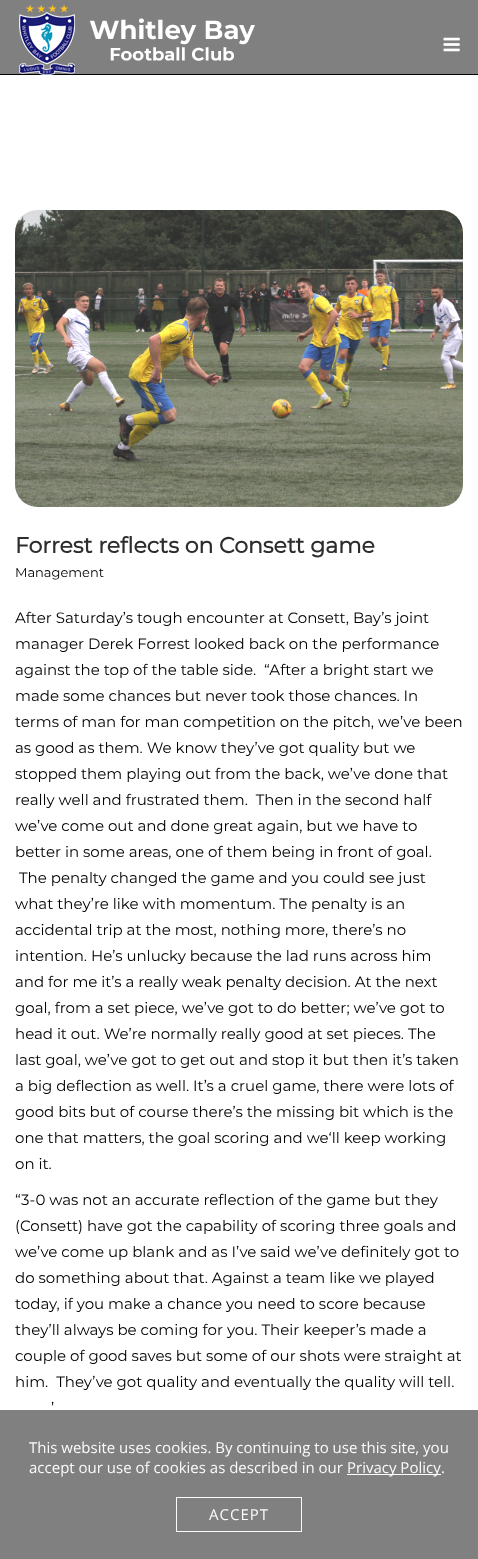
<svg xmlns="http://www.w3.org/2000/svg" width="478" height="1559">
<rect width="100%" height="100%" fill="#fff"/>
<rect width="478" height="74" fill="#808080"/>
<rect y="74" width="478" height="1" fill="#000"/>
<image x="19" y="5" width="236" height="70" href="media/1.png"/>
<image x="443" y="37" width="17" height="15" href="media/2.png"/>
<image x="15" y="210" width="448" height="297" href="media/3.png"/>
<text x="15" y="553" style="font-family:Montserrat;font-size:22px;font-weight:bold;fill:#2d2d2d">Forrest reflects on Consett game</text>
<text x="15" y="577" style="font-family:Montserrat;font-size:13px;fill:#000">Management</text>
<text x="15" y="623" style="font-family:Montserrat;font-size:15px;fill:#000">After Saturday’s tough encounter at Consett, Bay’s joint</text>
<text x="15" y="649" style="font-family:Montserrat;font-size:15px;fill:#000">manager Derek Forrest looked back on the performance</text>
<text x="15" y="675" style="font-family:Montserrat;font-size:15px;fill:#000" xml:space="preserve">against the top of the table side.  “After a bright start we</text>
<text x="15" y="701" style="font-family:Montserrat;font-size:15px;fill:#000">made some chances but never took those chances. In</text>
<text x="15" y="727" style="font-family:Montserrat;font-size:15px;fill:#000">terms of man for man competition on the pitch, we’ve been</text>
<text x="15" y="753" style="font-family:Montserrat;font-size:15px;fill:#000">as good as them. We know they’ve got quality but we</text>
<text x="15" y="779" style="font-family:Montserrat;font-size:15px;fill:#000">stopped them playing out from the back, we’ve done that</text>
<text x="15" y="805" style="font-family:Montserrat;font-size:15px;fill:#000" xml:space="preserve">really well and frustrated them.  Then in the second half</text>
<text x="15" y="831" style="font-family:Montserrat;font-size:15px;fill:#000">we’ve come out and done great again, but we have to</text>
<text x="15" y="857" style="font-family:Montserrat;font-size:15px;fill:#000">better in some areas, one of them being in front of goal.</text>
<text x="19" y="883" style="font-family:Montserrat;font-size:15px;fill:#000">The penalty changed the game and you could see just</text>
<text x="15" y="909" style="font-family:Montserrat;font-size:15px;fill:#000">what they’re like with momentum. The penalty is an</text>
<text x="15" y="935" style="font-family:Montserrat;font-size:15px;fill:#000">accidental trip at the most, nothing more, there’s no</text>
<text x="15" y="961" style="font-family:Montserrat;font-size:15px;fill:#000">intention. He’s unlucky because the lad runs across him</text>
<text x="15" y="987" style="font-family:Montserrat;font-size:15px;fill:#000">and for me it’s a really weak penalty decision. At the next</text>
<text x="15" y="1013" style="font-family:Montserrat;font-size:15px;fill:#000">goal, from a set piece, we’ve got to do better; we’ve got to</text>
<text x="15" y="1039" style="font-family:Montserrat;font-size:15px;fill:#000">head it out. We’re normally really good at set pieces. The</text>
<text x="15" y="1065" style="font-family:Montserrat;font-size:15px;fill:#000">last goal, we’ve got to get out and stop it but then it’s taken</text>
<text x="15" y="1091" style="font-family:Montserrat;font-size:15px;fill:#000">a big deflection as well. It’s a cruel game, there were lots of</text>
<text x="15" y="1117" style="font-family:Montserrat;font-size:15px;fill:#000">good bits but of course there’s the missing bit which is the</text>
<text x="15" y="1143" style="font-family:Montserrat;font-size:15px;fill:#000">one that matters, the goal scoring and we‘ll keep working</text>
<text x="15" y="1169" style="font-family:Montserrat;font-size:15px;fill:#000">on it.</text>
<text x="15" y="1205" style="font-family:Montserrat;font-size:15px;fill:#000">“3-0 was not an accurate reflection of the game but they</text>
<text x="15" y="1231" style="font-family:Montserrat;font-size:15px;fill:#000">(Consett) have got the capability of scoring three goals and</text>
<text x="15" y="1257" style="font-family:Montserrat;font-size:15px;fill:#000">we’ve come up blank and as I’ve said we’ve definitely got to</text>
<text x="15" y="1283" style="font-family:Montserrat;font-size:15px;fill:#000">do something about that. Against a team like we played</text>
<text x="15" y="1309" style="font-family:Montserrat;font-size:15px;fill:#000">today, if you make a chance you need to score because</text>
<text x="15" y="1335" style="font-family:Montserrat;font-size:15px;fill:#000">they’ll always be coming for you. Their keeper’s made a</text>
<text x="15" y="1361" style="font-family:Montserrat;font-size:15px;fill:#000">couple of good saves but some of our shots were straight at</text>
<text x="15" y="1387" style="font-family:Montserrat;font-size:15px;fill:#000" xml:space="preserve">him.  They’ve got quality and eventually the quality will tell.</text>
<text x="51" y="1413" style="font-family:Montserrat;font-size:15px;fill:#000">’</text>
<rect y="1410" width="478" height="149" fill="#7c7c7cf7"/>
<text x="29" y="1453" style="font-family:Open Sans;font-size:15px;fill:#fbfbfb">This website uses cookies. By continuing to use this site, you</text>
<text x="29" y="1473" style="font-family:Open Sans;font-size:15px;fill:#fbfbfb">accept our use of cookies as described in our</text>
<rect x="347" y="1474" width="94" height="1" fill="#fff"/>
<text x="347" y="1473" style="font-family:Open Sans;font-size:15px;fill:#fbfbfb">Privacy Policy</text>
<text x="441" y="1473" style="font-family:Open Sans;font-size:15px;fill:#fbfbfb">.</text>
<rect x="176.5" y="1497.5" width="125" height="34" fill="none" stroke="#fffffff7"/>
<text x="209" y="1520" style="font-family:Open Sans;font-size:15px;letter-spacing:1px;fill:#fbfbfb">ACCEPT</text>
</svg>
